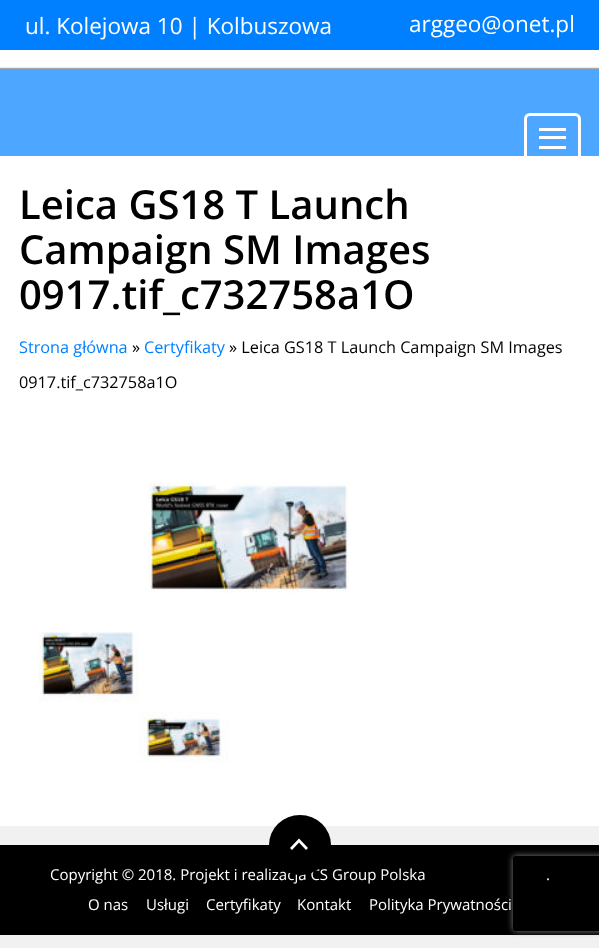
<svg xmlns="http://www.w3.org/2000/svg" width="599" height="948">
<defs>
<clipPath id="clip1"><path d="M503 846h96v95h-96zm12.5 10h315c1.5 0 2.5 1 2.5 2.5v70c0 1.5-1 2.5-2.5 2.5h-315c-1.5 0-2.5-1-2.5-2.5v-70c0-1.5 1-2.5 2.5-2.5z" clip-rule="evenodd"/></clipPath>
</defs>
<rect width="100%" height="100%" fill="#f1f1f1"/>
<rect y="50" width="599" height="19" fill="#fff"/>
<rect width="599" height="50" fill="#0080ff"/>
<text x="25" y="34" style="font-family:Open Sans;font-size:22.5px;fill:#fff">ul. Kolejowa 10 | Kolbuszowa</text>
<text x="409" y="32" style="font-family:Open Sans;font-size:22.5px;fill:#fff">arggeo@onet.pl</text>
<rect x="-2" y="69" width="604" height="92" fill="#000" filter="blur(1px)"/>
<rect y="69" width="599" height="87" fill="#4da6ff"/>
<rect y="156" width="599" height="670" fill="#fff"/>
<rect x="525.5" y="114.5" width="54" height="48" rx="4.5" fill="none" stroke="#fff" stroke-width="3"/>
<rect x="539" y="128" width="27" height="3" fill="#fff"/>
<rect x="539" y="136" width="27" height="3" fill="#fff"/>
<rect x="539" y="146" width="27" height="3" fill="#fff"/>
<text x="19" y="219" style="font-family:Open Sans;font-size:40px;font-weight:600;fill:#000">Leica GS18 T Launch</text>
<text x="19" y="264" style="font-family:Open Sans;font-size:40px;font-weight:600;fill:#000">Campaign SM Images</text>
<text x="19" y="309" style="font-family:Open Sans;font-size:40px;font-weight:600;fill:#000">0917.tif_c732758a1O</text>
<text x="19" y="353" style="font-family:Open Sans;font-size:16.25px;fill:#0080ff">Strona główna</text>
<text x="132" y="353" style="font-family:Open Sans;font-size:16.25px;fill:#000">»</text>
<text x="144" y="353" style="font-family:Open Sans;font-size:16.25px;fill:#0080ff">Certyfikaty</text>
<text x="229" y="353" style="font-family:Open Sans;font-size:16.25px;fill:#000">» Leica GS18 T Launch Campaign SM Images</text>
<text x="19" y="388" style="font-family:Open Sans;font-size:16.25px;fill:#000">0917.tif_c732758a1O</text>
<image x="38" y="482" width="311" height="281" href="media/1.png"/>
<rect y="845" width="599" height="90" fill="#000"/>
<text x="50" y="880" style="font-family:Open Sans;font-size:15px;fill:#fff">Copyright © 2018. Projekt i realizacja CS Group Polska</text>
<ellipse cx="300" cy="845" rx="31" ry="30" fill="#000"/>
<path d="M306 850l-7-7.5l-7 7.5l-2-2l9-9.5l9 9.5z" fill="#fff"/>
<text x="546" y="880" style="font-family:Open Sans;font-size:15px;fill:#fff">.</text>
<text x="88" y="910" style="font-family:Open Sans;font-size:15px;fill:#fff">O nas</text>
<text x="146" y="910" style="font-family:Open Sans;font-size:15px;fill:#fff">Usługi</text>
<text x="206" y="910" style="font-family:Open Sans;font-size:15px;fill:#fff">Certyfikaty</text>
<text x="297" y="910" style="font-family:Open Sans;font-size:15px;fill:#fff">Kontakt</text>
<text x="369" y="910" style="font-family:Open Sans;font-size:15px;fill:#fff">Polityka Prywatności</text>
<g clip-path="url(#clip1)">
<rect x="513" y="856" width="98" height="75" rx="2.5" fill="#808080" filter="blur(3px)"/>
</g>
</svg>
